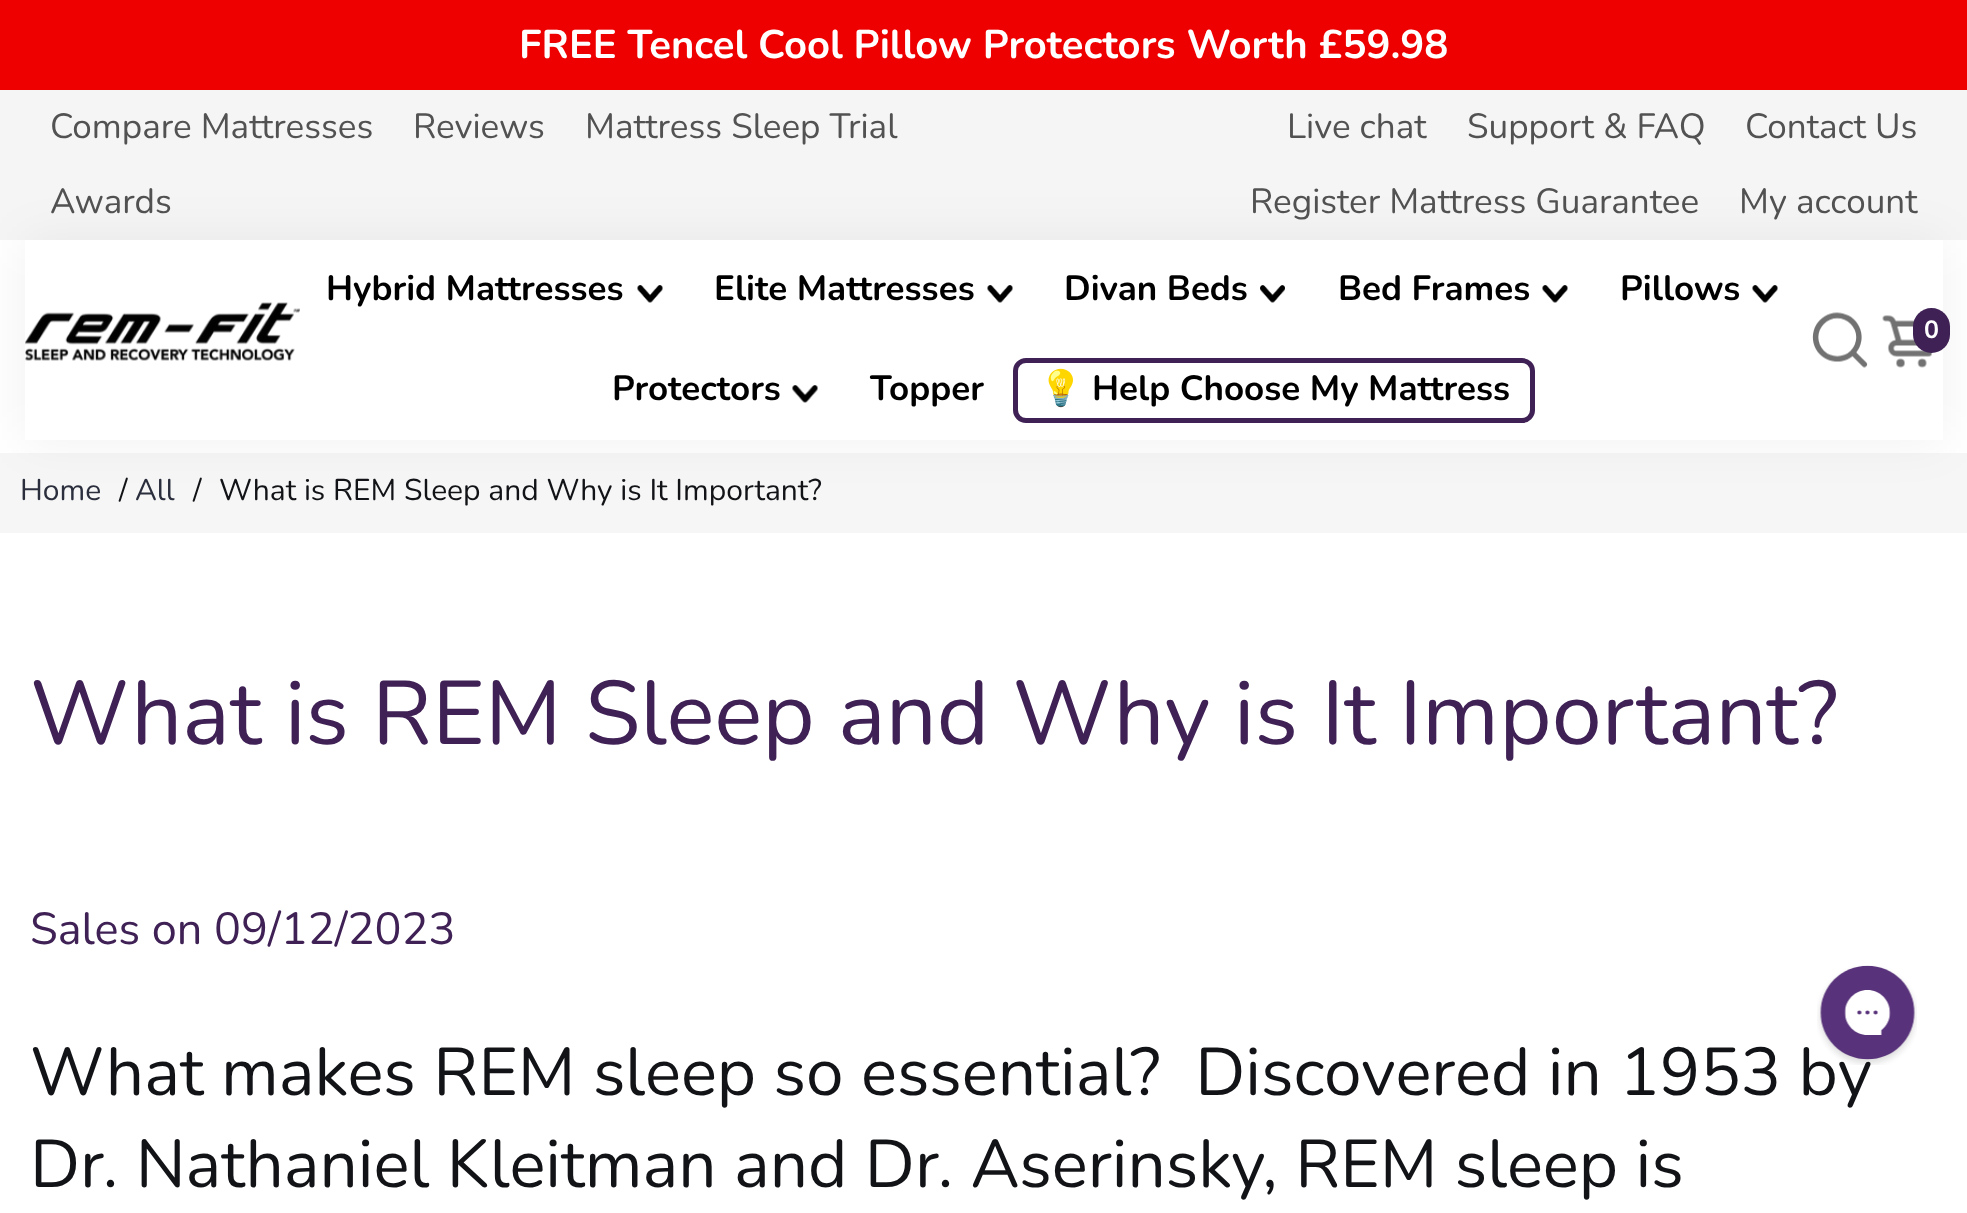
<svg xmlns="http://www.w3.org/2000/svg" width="1967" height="1213">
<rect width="100%" height="100%" fill="#fff"/>
<rect width="1967" height="90" fill="#ef0000"/>
<text x="519" y="58" style="font-family:Nunito;font-size:40px;font-weight:bold;fill:#fff">FREE Tencel Cool Pillow Protectors Worth £59.98</text>
<rect y="90" width="1967" height="150" fill="#f5f5f5"/>
<text x="50" y="138" style="font-family:Nunito;font-size:35px;fill:#525252">Compare Mattresses</text>
<text x="413" y="138" style="font-family:Nunito;font-size:35px;fill:#525252">Reviews</text>
<text x="585" y="138" style="font-family:Nunito;font-size:35px;fill:#525252">Mattress Sleep Trial</text>
<text x="50" y="213" style="font-family:Nunito;font-size:35px;fill:#525252">Awards</text>
<text x="1287" y="138" style="font-family:Nunito;font-size:35px;fill:#525252">Live chat</text>
<text x="1467" y="138" style="font-family:Nunito;font-size:35px;fill:#525252">Support &amp; FAQ</text>
<text x="1745" y="138" style="font-family:Nunito;font-size:35px;fill:#525252">Contact Us</text>
<text x="1250" y="213" style="font-family:Nunito;font-size:35px;fill:#525252">Register Mattress Guarantee</text>
<text x="1739" y="213" style="font-family:Nunito;font-size:35px;fill:#525252">My account</text>
<rect y="453" width="1967" height="80" fill="#f6f6f6"/>
<rect x="25" y="240" width="1918" height="200" fill="#0000000f" filter="blur(25px)"/>
<rect x="25" y="240" width="1918" height="200" fill="#fff"/>
<image x="25" y="302" width="275" height="59" href="media/1.png"/>
<text x="326" y="300" style="font-family:Nunito;font-size:35px;font-weight:bold;fill:#000">Hybrid Mattresses</text>
<image x="637" y="285" width="26" height="18" href="media/2.png"/>
<text x="714" y="300" style="font-family:Nunito;font-size:35px;font-weight:bold;fill:#000">Elite Mattresses</text>
<image x="987" y="285" width="26" height="18" href="media/3.png"/>
<text x="1064" y="300" style="font-family:Nunito;font-size:35px;font-weight:bold;fill:#000">Divan Beds</text>
<image x="1260" y="285" width="25" height="18" href="media/4.png"/>
<text x="1338" y="300" style="font-family:Nunito;font-size:35px;font-weight:bold;fill:#000">Bed Frames</text>
<image x="1542" y="285" width="26" height="18" href="media/3.png"/>
<text x="1620" y="300" style="font-family:Nunito;font-size:35px;font-weight:bold;fill:#000">Pillows</text>
<image x="1752" y="285" width="26" height="18" href="media/2.png"/>
<text x="612" y="400" style="font-family:Nunito;font-size:35px;font-weight:bold;fill:#000">Protectors</text>
<image x="792" y="385" width="26" height="18" href="media/5.png"/>
<text x="870" y="400" style="font-family:Nunito;font-size:35px;font-weight:bold;fill:#000">Topper</text>
<rect x="1015.5" y="360.5" width="517" height="60" rx="10.5" fill="none" stroke="#3f2155" stroke-width="5"/>
<text x="1039" y="400" style="font-family:Noto Color Emoji;font-size:35px;font-weight:bold;fill:#000">💡</text>
<text x="1092" y="400" style="font-family:Nunito;font-size:35px;font-weight:bold;fill:#000">Help Choose My Mattress</text>
<image x="1812" y="312" width="56" height="56" href="media/6.png"/>
<image x="1882" y="315" width="51" height="53" href="media/7.png"/>
<rect x="1913" y="308" width="37" height="45" rx="18.5" fill="#3f2155"/>
<text x="1924" y="338" style="font-family:Nunito;font-size:25px;font-weight:bold;fill:#fff">0</text>
<text x="20" y="500" style="font-family:Nunito;font-size:30px;fill:#2b2f3d">Home</text>
<text x="119" y="500" style="font-family:Nunito;font-size:30px;fill:#121317">/</text>
<text x="135" y="500" style="font-family:Nunito;font-size:30px;fill:#2b2f3d">All</text>
<text x="193" y="500" style="font-family:Nunito;font-size:30px;fill:#121317">/</text>
<text x="219" y="500" style="font-family:Nunito;font-size:30px;fill:#121317">What is REM Sleep and Why is It Important?</text>
<text x="30" y="744" style="font-family:Nunito;font-size:90px;fill:#3f2155">What is REM Sleep and Why is It Important?</text>
<text x="30" y="944" style="font-family:Nunito;font-size:45px;fill:#3f2155">Sales on 09/12/2023</text>
<text x="30" y="1095" style="font-family:Nunito;font-size:67.5px;fill:#121317" xml:space="preserve">What makes REM sleep so essential?  Discovered in 1953 by</text>
<text x="30" y="1187" style="font-family:Nunito;font-size:67.5px;fill:#121317">Dr. Nathaniel Kleitman and Dr. Aserinsky, REM sleep is</text>
<image x="1817" y="965" width="100" height="100" href="media/8.png"/>
</svg>
